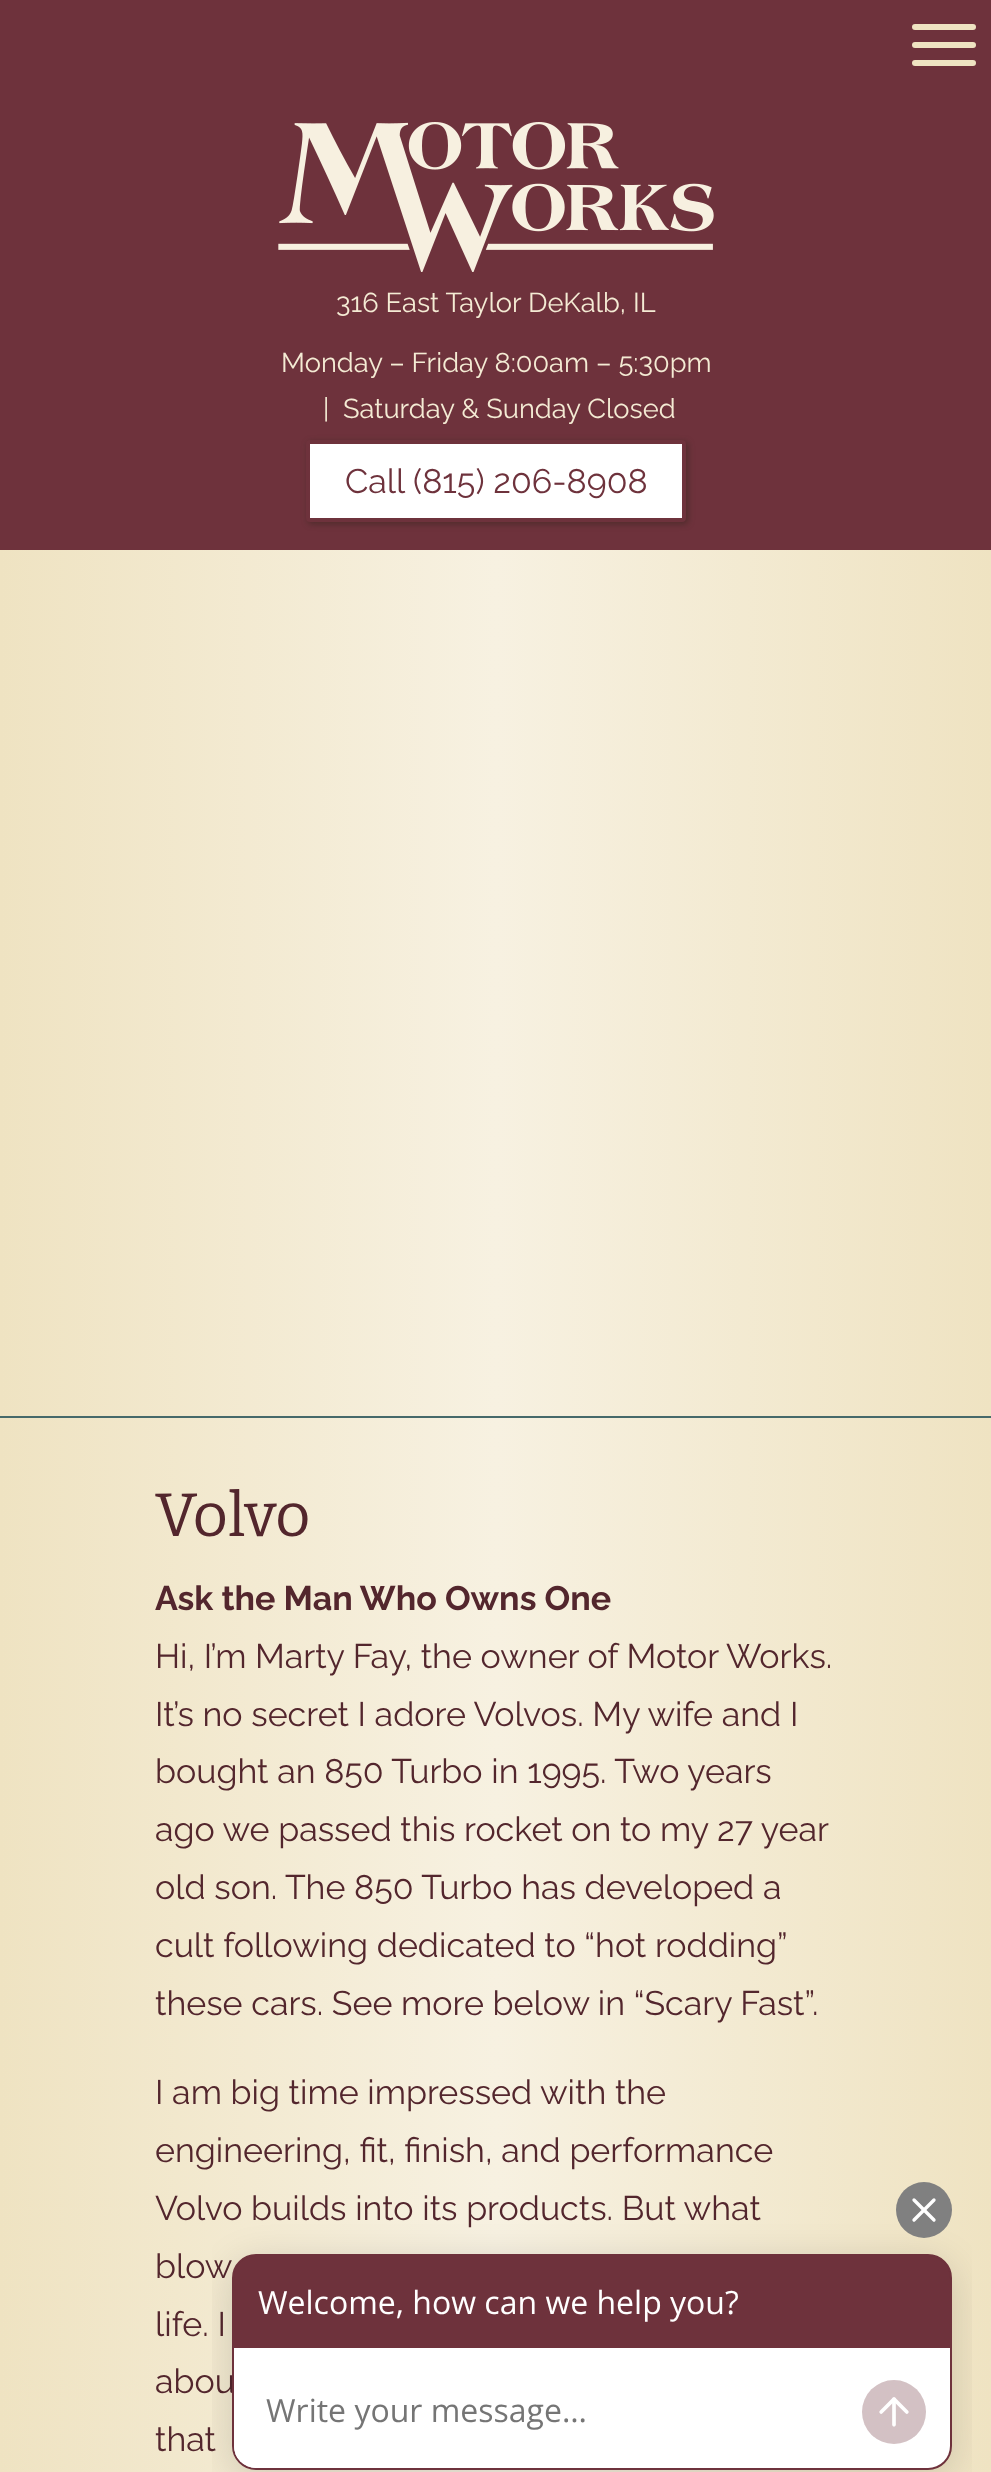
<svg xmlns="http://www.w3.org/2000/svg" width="991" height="2472">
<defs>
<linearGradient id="g1" gradientUnits="userSpaceOnUse" x1="0" y1="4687" x2="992" y2="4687"><stop offset="0" stop-color="#efe3c2"/><stop offset="0.5" stop-color="#f7f1e1"/><stop offset="1" stop-color="#efe3c2"/></linearGradient>
</defs>
<rect width="100%" height="100%" fill="#fff"/>
<rect y="550" width="991" height="1922" fill="url(#g1)"/>
<rect width="991" height="550" fill="#6e323c"/>
<rect x="912" y="24" width="64" height="6" rx="3" fill="#efe3c2"/>
<rect x="912" y="42" width="64" height="6" rx="3" fill="#efe3c2"/>
<rect x="912" y="60" width="64" height="6" rx="3" fill="#efe3c2"/>
<image x="278" y="122" width="436" height="150" href="media/1.png"/>
<text x="336" y="312" style="font-family:Raleway;font-size:27.25px;fill:#f4ebd4">316 East Taylor DeKalb, IL</text>
<text x="281" y="372" style="font-family:Raleway;font-size:27.25px;fill:#f4ebd4">Monday – Friday 8:00am – 5:30pm</text>
<text x="323" y="418" style="font-family:Raleway;font-size:27.25px;fill:#f4ebd4">|</text>
<text x="343" y="418" style="font-family:Raleway;font-size:27.25px;fill:#f4ebd4">Saturday &amp; Sunday Closed</text>
<rect x="308" y="442" width="380" height="82" rx="4" fill="#2d261980" filter="blur(3px)"/>
<rect x="308" y="442" width="376" height="78" rx="2" fill="#fff" stroke="#6e323c" stroke-width="4"/>
<text x="345" y="493" style="font-family:Raleway;font-size:34px;fill:#6e323c">Call (815) 206-8908</text>
<rect y="1416" width="991" height="2" fill="#46696a"/>
<text x="155" y="1536" style="font-family:Bitter;font-size:61px;font-weight:100;fill:#53262d">Volvo</text>
<text x="155" y="1610" style="font-family:Raleway;font-size:34px;font-weight:bold;fill:#53262d">Ask the Man Who Owns One</text>
<text x="155" y="1668" style="font-family:Raleway;font-size:34px;fill:#53262d">Hi, I’m Marty Fay, the owner of Motor Works.</text>
<text x="155" y="1726" style="font-family:Raleway;font-size:34px;fill:#53262d">It’s no secret I adore Volvos. My wife and I</text>
<text x="155" y="1783" style="font-family:Raleway;font-size:34px;fill:#53262d">bought an 850 Turbo in 1995. Two years</text>
<text x="155" y="1841" style="font-family:Raleway;font-size:34px;fill:#53262d">ago we passed this rocket on to my 27 year</text>
<text x="155" y="1899" style="font-family:Raleway;font-size:34px;fill:#53262d">old son. The 850 Turbo has developed a</text>
<text x="155" y="1957" style="font-family:Raleway;font-size:34px;fill:#53262d">cult following dedicated to “hot rodding”</text>
<text x="155" y="2015" style="font-family:Raleway;font-size:34px;fill:#53262d">these cars. See more below in “Scary Fast”.</text>
<text x="155" y="2104" style="font-family:Raleway;font-size:34px;fill:#53262d">I am big time impressed with the</text>
<text x="155" y="2162" style="font-family:Raleway;font-size:34px;fill:#53262d">engineering, fit, finish, and performance</text>
<text x="155" y="2220" style="font-family:Raleway;font-size:34px;fill:#53262d">Volvo builds into its products. But what</text>
<text x="155" y="2278" style="font-family:Raleway;font-size:34px;fill:#53262d">blow</text>
<text x="155" y="2336" style="font-family:Raleway;font-size:34px;fill:#53262d">life. I</text>
<text x="155" y="2393" style="font-family:Raleway;font-size:34px;fill:#53262d">abou</text>
<text x="155" y="2451" style="font-family:Raleway;font-size:34px;fill:#53262d">that</text>
<image x="212" y="2182" width="760" height="290" href="media/2.png"/>
</svg>
